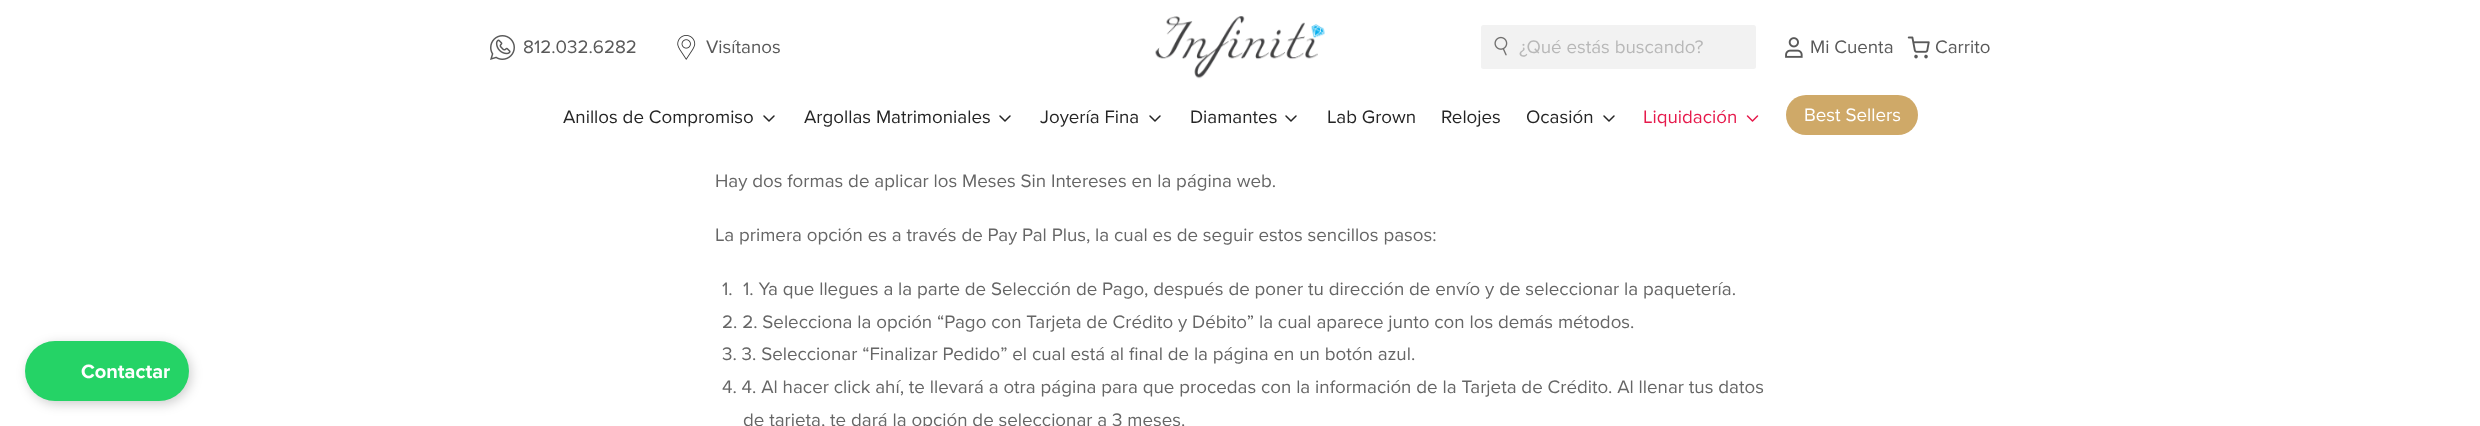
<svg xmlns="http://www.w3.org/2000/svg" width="2480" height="426">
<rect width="100%" height="100%" fill="#fff"/>
<image x="490" y="35" width="25" height="25" href="media/1.png"/>
<text x="523" y="53" style="font-family:Proxima Nova;font-size:18.75px;fill:#595959">812.032.6282</text>
<image x="677" y="35" width="19" height="25" href="media/2.png"/>
<text x="706" y="53" style="font-family:Proxima Nova;font-size:18.75px;fill:#595959">Visítanos</text>
<image x="1155" y="16" width="170" height="63" href="media/3.png"/>
<rect x="1481" y="25" width="275" height="44" rx="2.5" fill="#f2f2f2"/>
<image x="1494" y="36" width="14" height="20" href="media/4.png"/>
<text x="1519" y="53" style="font-family:Proxima Nova;font-size:18.75px;fill:#b8b8b8">¿Qué estás buscando?</text>
<image x="1785" y="37" width="18" height="21" href="media/5.png"/>
<text x="1810" y="53" style="font-family:Proxima Nova;font-size:18.75px;fill:#595959">Mi Cuenta</text>
<image x="1907" y="36" width="23" height="23" href="media/6.png"/>
<text x="1935" y="53" style="font-family:Proxima Nova;font-size:18.75px;fill:#595959">Carrito</text>
<text x="563" y="123" style="font-family:Proxima Nova;font-size:18.75px;fill:#252525">Anillos de Compromiso</text>
<path d="M764 116l5 5l5-5" fill="none" stroke="#252525" stroke-width="1.5" stroke-linecap="round" stroke-linejoin="round"/>
<text x="804" y="123" style="font-family:Proxima Nova;font-size:18.75px;fill:#252525">Argollas Matrimoniales</text>
<path d="M1000 116l5 5l5-5" fill="none" stroke="#252525" stroke-width="1.5" stroke-linecap="round" stroke-linejoin="round"/>
<text x="1040" y="123" style="font-family:Proxima Nova;font-size:18.75px;fill:#252525">Joyería Fina</text>
<path d="M1150 116l5 5l5-5" fill="none" stroke="#252525" stroke-width="1.5" stroke-linecap="round" stroke-linejoin="round"/>
<text x="1190" y="123" style="font-family:Proxima Nova;font-size:18.75px;fill:#252525">Diamantes</text>
<path d="M1286 116l5 5l5-5" fill="none" stroke="#252525" stroke-width="1.5" stroke-linecap="round" stroke-linejoin="round"/>
<text x="1327" y="123" style="font-family:Proxima Nova;font-size:18.75px;fill:#252525">Lab Grown</text>
<text x="1441" y="123" style="font-family:Proxima Nova;font-size:18.75px;fill:#252525">Relojes</text>
<text x="1526" y="123" style="font-family:Proxima Nova;font-size:18.75px;fill:#252525">Ocasión</text>
<path d="M1604 116l5 5l5-5" fill="none" stroke="#252525" stroke-width="1.5" stroke-linecap="round" stroke-linejoin="round"/>
<text x="1643" y="123" style="font-family:Proxima Nova;font-size:18.75px;fill:#e61a4c">Liquidación</text>
<path d="M1747.5 116l5 5l5-5" fill="none" stroke="#e61a4c" stroke-width="1.5" stroke-linecap="round" stroke-linejoin="round"/>
<rect x="1786" y="95" width="132" height="40" rx="20" fill="#cfa968"/>
<text x="1804" y="121" style="font-family:Proxima Nova;font-size:18.75px;fill:#fff">Best Sellers</text>
<rect x="28" y="344" width="163" height="60" rx="30" fill="#00000033" filter="blur(6px)"/>
<rect x="25" y="341" width="164" height="60" rx="30" fill="#25d366"/>
<text x="81" y="378" style="font-family:Proxima Nova;font-size:20px;font-weight:bold;fill:#fff">Contactar</text>
<text x="715" y="187" style="font-family:Proxima Nova;font-size:18.75px;fill:#666">Hay dos formas de aplicar los Meses Sin Intereses en la página web.</text>
<text x="715" y="241" style="font-family:Proxima Nova;font-size:18.75px;fill:#666">La primera opción es a través de Pay Pal Plus, la cual es de seguir estos sencillos pasos:</text>
<text x="722" y="295" style="font-family:Proxima Nova;font-size:18.75px;fill:#666">1.</text>
<text x="743" y="295" style="font-family:Proxima Nova;font-size:18.75px;fill:#666">1. Ya que llegues a la parte de Selección de Pago, después de poner tu dirección de envío y de seleccionar la paquetería.</text>
<text x="722" y="328" style="font-family:Proxima Nova;font-size:18.75px;fill:#666">2. 2. Selecciona la opción “Pago con Tarjeta de Crédito y Débito” la cual aparece junto con los demás métodos.</text>
<text x="722" y="360" style="font-family:Proxima Nova;font-size:18.75px;fill:#666">3. 3. Seleccionar “Finalizar Pedido” el cual está al final de la página en un botón azul.</text>
<text x="722" y="393" style="font-family:Proxima Nova;font-size:18.75px;fill:#666">4. 4. Al hacer click ahí, te llevará a otra página para que procedas con la información de la Tarjeta de Crédito. Al llenar tus datos</text>
<text x="743" y="426" style="font-family:Proxima Nova;font-size:18.75px;fill:#666">de tarjeta, te dará la opción de seleccionar a 3 meses.</text>
</svg>
